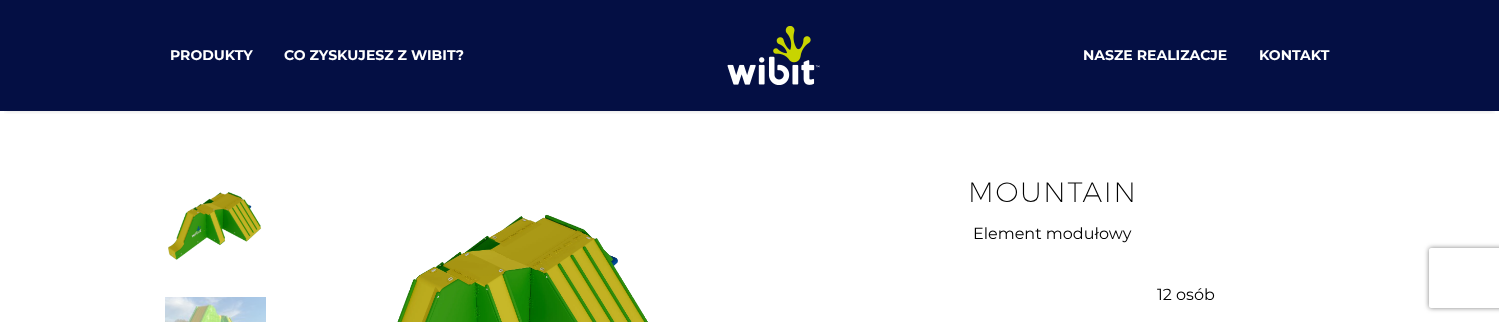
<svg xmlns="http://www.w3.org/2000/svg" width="1499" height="322">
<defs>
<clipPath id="clip1"><rect x="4" y="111" width="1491" height="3"/></clipPath>
<clipPath id="clip2"><path d="M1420 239h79v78h-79zm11 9h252c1 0 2 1 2 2v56c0 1-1 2-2 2h-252c-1 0-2-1-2-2v-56c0-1 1-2 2-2z" clip-rule="evenodd"/></clipPath>
</defs>
<rect width="100%" height="100%" fill="#fff"/>
<rect width="1499" height="111" fill="#040f44"/>
<g clip-path="url(#clip1)">
<rect x="5" y="10" width="1489" height="101" fill="#00000026" filter="blur(2.5px)"/>
</g>
<text x="170" y="60" style="font-family:Montserrat;font-size:14px;font-weight:bold;fill:#fff">PRODUKTY</text>
<text x="284" y="60" style="font-family:Montserrat;font-size:14px;font-weight:bold;fill:#fff">CO ZYSKUJESZ Z WIBIT?</text>
<image x="727" y="26" width="93" height="59" href="media/1.png"/>
<text x="1083" y="60" style="font-family:Montserrat;font-size:14px;font-weight:bold;fill:#fff">NASZE REALIZACJE</text>
<text x="1259" y="60" style="font-family:Montserrat;font-size:14px;font-weight:bold;fill:#fff">KONTAKT</text>
<image x="168" y="192" width="94" height="68" href="media/2.png"/>
<image x="165" y="297" width="101" height="25" href="media/3.png"/>
<image x="397" y="214" width="251" height="108" href="media/4.png"/>
<text x="968" y="202" style="font-family:Montserrat;font-size:28px;font-weight:200;letter-spacing:1.75px;fill:#000">MOUNTAIN</text>
<text x="973" y="239" style="font-family:Montserrat;font-size:16px;fill:#000">Element modułowy</text>
<text x="1157" y="300" style="font-family:Montserrat;font-size:16px;fill:#000">12 osób</text>
<g clip-path="url(#clip2)">
<rect x="1429" y="248" width="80" height="60" rx="2" fill="#808080" filter="blur(2.5px)"/>
</g>
</svg>
